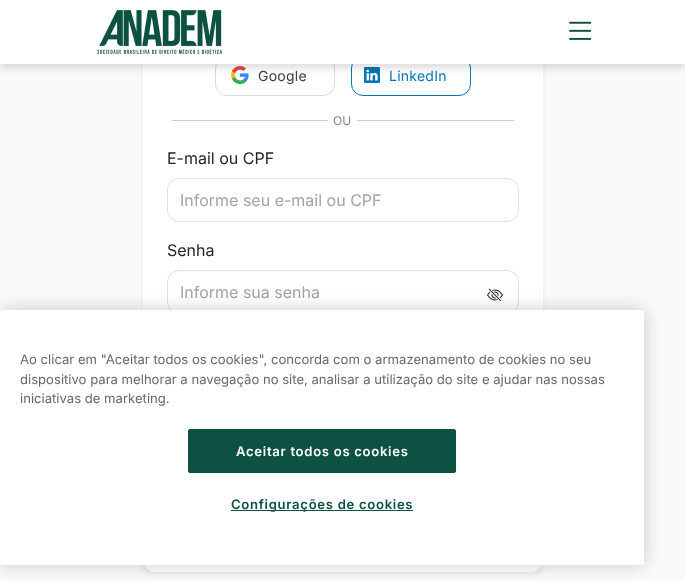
<svg xmlns="http://www.w3.org/2000/svg" width="685" height="581">
<rect width="100%" height="100%" fill="#f9fafb"/>
<rect x="143" y="-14" width="400" height="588" rx="8" fill="#00000012" filter="blur(2px)"/>
<rect x="143" y="24" width="400" height="548" rx="12" fill="#fff"/>
<image x="231" y="66" width="18" height="18" href="media/3.png"/>
<rect x="215.5" y="56.5" width="119" height="39" rx="11.5" fill="none" stroke="#dadce0"/>
<rect x="351.5" y="56.5" width="119" height="39" rx="11.5" fill="none" stroke="#0077b5"/>
<image x="364" y="67" width="16" height="16" href="media/4.png"/>
<rect y="4" width="685" height="64" fill="#00000024" filter="blur(4px)"/>
<rect width="685" height="64" fill="#fff"/>
<image x="97" y="10" width="125" height="44" href="media/1.png"/>
<image x="569" y="21" width="23" height="19" href="media/2.png"/>
<text x="258" y="81" style="font-family:Inter;font-size:14px;letter-spacing:0.25px;fill:#3c4043">Google</text>
<text x="389" y="81" style="font-family:Inter;font-size:14px;letter-spacing:0.25px;fill:#0077b5">LinkedIn</text>
<rect x="172" y="120" width="156" height="1" fill="#ccc"/>
<text x="333" y="125" style="font-family:Inter;font-size:12px;fill:#858585">OU</text>
<rect x="357" y="120" width="157" height="1" fill="#ccc"/>
<text x="167" y="164" style="font-family:Inter;font-size:16px;fill:#212529">E-mail ou CPF</text>
<rect x="167.5" y="178.5" width="351" height="43" rx="11.5" fill="none" stroke="#dee2e6"/>
<text x="180" y="206" style="font-family:Inter;font-size:16px;fill:#a3a3a3">Informe seu e-mail ou CPF</text>
<text x="167" y="256" style="font-family:Inter;font-size:16px;fill:#212529">Senha</text>
<rect x="167.5" y="270.5" width="351" height="43" rx="11.5" fill="none" stroke="#dee2e6"/>
<text x="180" y="298" style="font-family:Inter;font-size:16px;fill:#a3a3a3">Informe sua senha</text>
<image x="487" y="288" width="16" height="14" href="media/5.png"/>
<rect y="310" width="644" height="255" rx="2.5" fill="#00000033" filter="blur(9px)"/>
<rect y="310" width="644" height="255" rx="2.5" fill="#fff"/>
<text x="20" y="364" style="font-family:Inter;font-size:13.1px;fill:#696969">Ao clicar em "Aceitar todos os cookies", concorda com o armazenamento de cookies no seu</text>
<text x="20" y="384" style="font-family:Inter;font-size:13.1px;fill:#696969">dispositivo para melhorar a navegação no site, analisar a utilização do site e ajudar nas nossas</text>
<text x="20" y="403" style="font-family:Inter;font-size:13.1px;fill:#696969">iniciativas de marketing.</text>
<rect x="188.5" y="429.5" width="267" height="43" rx="1.5" fill="#0c5141" stroke="#0c5141"/>
<text x="236" y="456" style="font-family:Inter;font-size:13.1px;font-weight:600;letter-spacing:0.7px;fill:#fff">Aceitar todos os cookies</text>
<rect x="231" y="510" width="182" height="1" fill="#0c5141"/>
<text x="231" y="509" style="font-family:Inter;font-size:13.1px;font-weight:600;letter-spacing:0.7px;fill:#0c5141">Configurações de cookies</text>
</svg>
